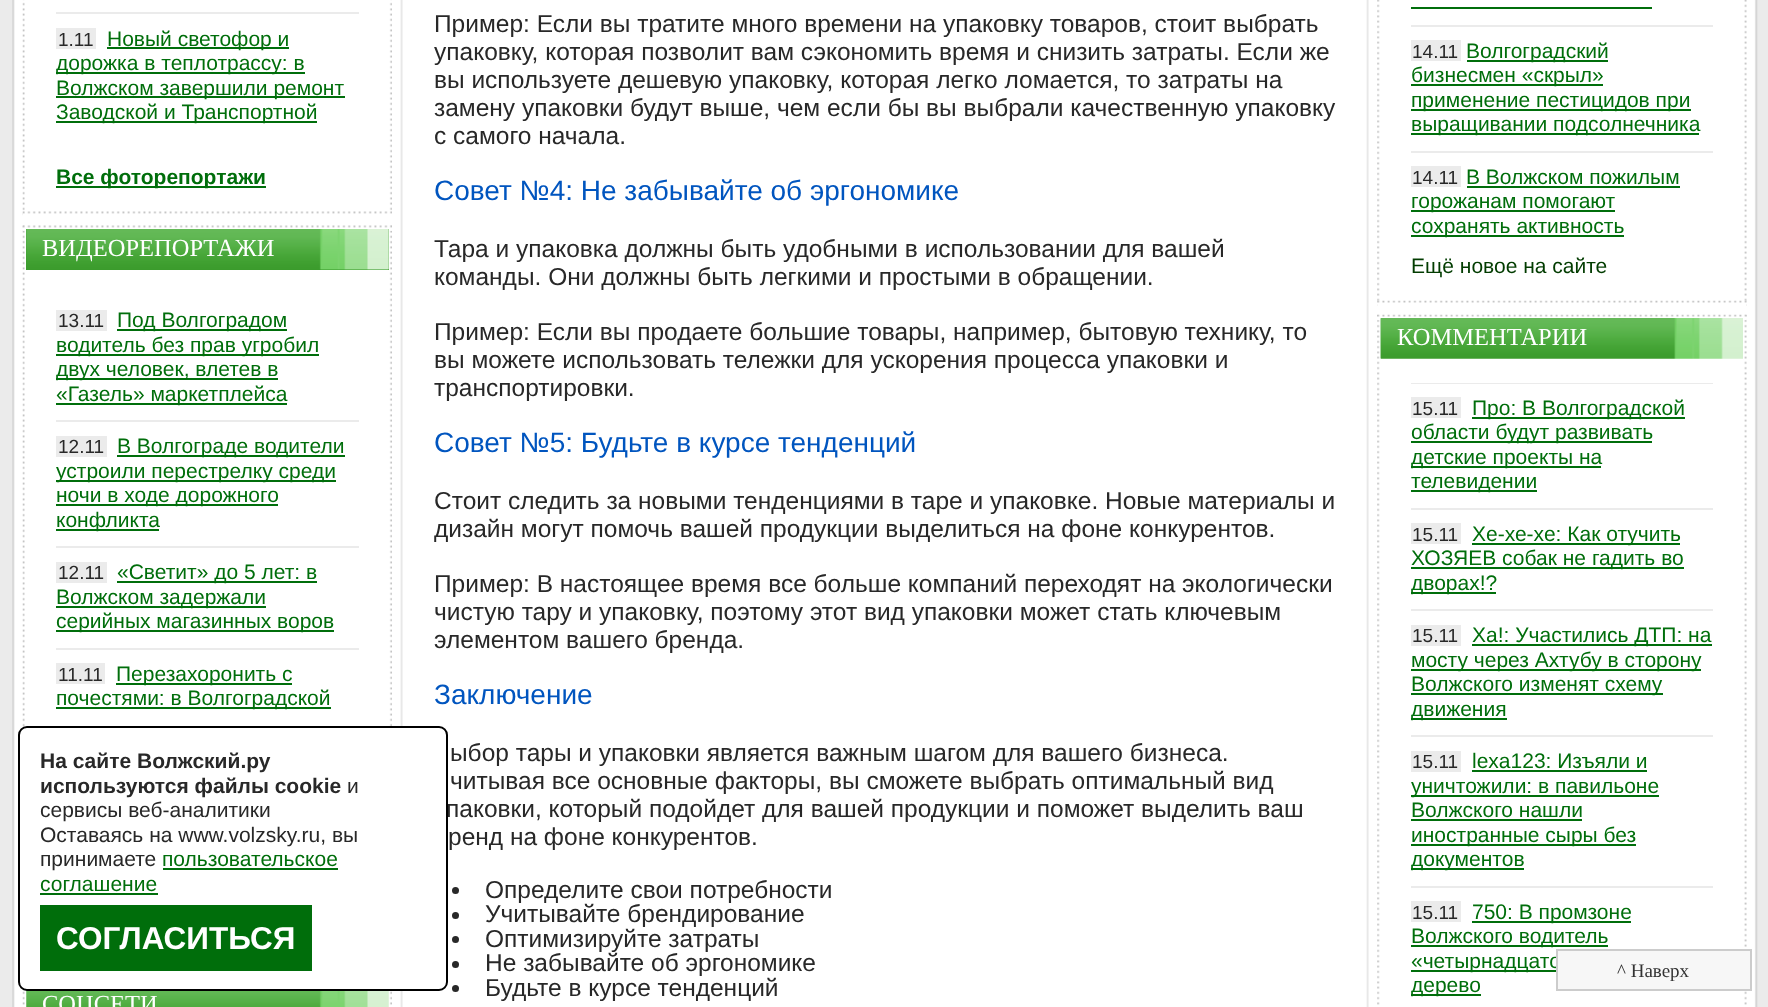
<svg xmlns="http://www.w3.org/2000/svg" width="1768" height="1007">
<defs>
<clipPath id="clip1"><rect x="1411" y="383" width="302" height="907"/></clipPath>
</defs>
<rect width="100%" height="100%" fill="#ebebeb"/>
<image x="12" y="0" width="1356" height="1007" href="media/1.png"/>
<image x="1366" y="0" width="402" height="1007" href="media/2.png"/>
<image x="22" y="0" width="370" height="216" href="media/3.png"/>
<image x="22" y="211" width="370" height="5" href="media/4.png"/>
<rect x="56" y="12" width="303" height="2" fill="#ebebeb"/>
<rect x="56" y="28" width="40" height="21" fill="#ebebeb"/>
<text x="58" y="46" style="font-family:Liberation Sans;font-size:19px;fill:#282828">1.11</text>
<rect x="107" y="47" width="182" height="2" fill="#006e0b"/>
<text x="107" y="46" style="font-family:Liberation Sans;font-size:21px;fill:#006e0b">Новый светофор и</text>
<rect x="56" y="72" width="249" height="2" fill="#006e0b"/>
<text x="56" y="70" style="font-family:Liberation Sans;font-size:21px;fill:#006e0b">дорожка в теплотрассу: в</text>
<rect x="56" y="96" width="289" height="2" fill="#006e0b"/>
<text x="56" y="95" style="font-family:Liberation Sans;font-size:21px;fill:#006e0b">Волжском завершили ремонт</text>
<rect x="56" y="121" width="261" height="2" fill="#006e0b"/>
<text x="56" y="119" style="font-family:Liberation Sans;font-size:21px;fill:#006e0b">Заводской и Транспортной</text>
<rect x="56" y="186" width="210" height="2" fill="#006e0b"/>
<text x="56" y="184" style="font-family:Liberation Sans;font-size:21px;font-weight:bold;fill:#006e0b">Все фоторепортажи</text>
<image x="22" y="225" width="370" height="503" href="media/5.png"/>
<image x="22" y="225" width="370" height="6" href="media/6.png"/>
<rect x="26" y="229" width="363" height="41" fill="#3b9b2c"/>
<image x="320" y="229" width="69" height="41" href="media/7.png"/>
<image x="26" y="229" width="363" height="41" href="media/8.png"/>
<text x="42" y="256" style="font-family:Liberation Serif;font-size:24.5px;fill:#fff">ВИДЕОРЕПОРТАЖИ</text>
<rect x="56" y="310" width="51" height="21" fill="#ebebeb"/>
<text x="58" y="327" style="font-family:Liberation Sans;font-size:19px;fill:#282828">13.11</text>
<rect x="117" y="329" width="170" height="2" fill="#006e0b"/>
<text x="117" y="327" style="font-family:Liberation Sans;font-size:21px;fill:#006e0b">Под Волгоградом</text>
<rect x="56" y="354" width="263" height="2" fill="#006e0b"/>
<text x="56" y="352" style="font-family:Liberation Sans;font-size:21px;fill:#006e0b">водитель без прав угробил</text>
<rect x="56" y="378" width="222" height="2" fill="#006e0b"/>
<text x="56" y="376" style="font-family:Liberation Sans;font-size:21px;fill:#006e0b">двух человек, влетев в</text>
<rect x="56" y="403" width="231" height="2" fill="#006e0b"/>
<text x="56" y="401" style="font-family:Liberation Sans;font-size:21px;fill:#006e0b">«Газель» маркетплейса</text>
<rect x="56" y="420" width="303" height="2" fill="#ebebeb"/>
<rect x="56" y="436" width="51" height="21" fill="#ebebeb"/>
<text x="58" y="453" style="font-family:Liberation Sans;font-size:19px;fill:#282828">12.11</text>
<rect x="117" y="455" width="228" height="2" fill="#006e0b"/>
<text x="117" y="453" style="font-family:Liberation Sans;font-size:21px;fill:#006e0b">В Волгограде водители</text>
<rect x="56" y="480" width="280" height="2" fill="#006e0b"/>
<text x="56" y="478" style="font-family:Liberation Sans;font-size:21px;fill:#006e0b">устроили перестрелку среди</text>
<rect x="56" y="504" width="222" height="2" fill="#006e0b"/>
<text x="56" y="502" style="font-family:Liberation Sans;font-size:21px;fill:#006e0b">ночи в ходе дорожного</text>
<rect x="56" y="529" width="103" height="2" fill="#006e0b"/>
<text x="56" y="527" style="font-family:Liberation Sans;font-size:21px;fill:#006e0b">конфликта</text>
<rect x="56" y="546" width="303" height="2" fill="#ebebeb"/>
<rect x="56" y="562" width="51" height="21" fill="#ebebeb"/>
<text x="58" y="579" style="font-family:Liberation Sans;font-size:19px;fill:#282828">12.11</text>
<rect x="117" y="581" width="200" height="2" fill="#006e0b"/>
<text x="117" y="579" style="font-family:Liberation Sans;font-size:21px;fill:#006e0b">«Светит» до 5 лет: в</text>
<rect x="56" y="606" width="210" height="2" fill="#006e0b"/>
<text x="56" y="604" style="font-family:Liberation Sans;font-size:21px;fill:#006e0b">Волжском задержали</text>
<rect x="56" y="630" width="278" height="2" fill="#006e0b"/>
<text x="56" y="628" style="font-family:Liberation Sans;font-size:21px;fill:#006e0b">серийных магазинных воров</text>
<rect x="56" y="648" width="303" height="2" fill="#ebebeb"/>
<rect x="56" y="663" width="49" height="21" fill="#ebebeb"/>
<text x="58" y="681" style="font-family:Liberation Sans;font-size:19px;fill:#282828">11.11</text>
<rect x="116" y="683" width="176" height="2" fill="#006e0b"/>
<text x="116" y="681" style="font-family:Liberation Sans;font-size:21px;fill:#006e0b">Перезахоронить с</text>
<rect x="56" y="707" width="275" height="2" fill="#006e0b"/>
<text x="56" y="705" style="font-family:Liberation Sans;font-size:21px;fill:#006e0b">почестями: в Волгоградской</text>
<image x="22" y="989" width="370" height="16" href="media/9.png"/>
<image x="388" y="991" width="1" height="16" href="media/10.png"/>
<image x="26" y="990" width="363" height="17" href="media/11.png"/>
<text x="42" y="1012" style="font-family:Liberation Serif;font-size:24.5px;fill:#fff">СОЦСЕТИ</text>
<text x="434" y="32" style="font-family:Liberation Sans;font-size:24.5px;fill:#282828">Пример: Если вы тратите много времени на упаковку товаров, стоит выбрать</text>
<text x="434" y="60" style="font-family:Liberation Sans;font-size:24.5px;fill:#282828">упаковку, которая позволит вам сэкономить время и снизить затраты. Если же</text>
<text x="434" y="88" style="font-family:Liberation Sans;font-size:24.5px;fill:#282828">вы используете дешевую упаковку, которая легко ломается, то затраты на</text>
<text x="434" y="116" style="font-family:Liberation Sans;font-size:24.5px;fill:#282828">замену упаковки будут выше, чем если бы вы выбрали качественную упаковку</text>
<text x="434" y="144" style="font-family:Liberation Sans;font-size:24.5px;fill:#282828">с самого начала.</text>
<text x="434" y="200" style="font-family:Liberation Sans;font-size:28px;fill:#0055bf">Совет №4: Не забывайте об эргономике</text>
<text x="434" y="257" style="font-family:Liberation Sans;font-size:24.5px;fill:#282828">Тара и упаковка должны быть удобными в использовании для вашей</text>
<text x="434" y="285" style="font-family:Liberation Sans;font-size:24.5px;fill:#282828">команды. Они должны быть легкими и простыми в обращении.</text>
<text x="434" y="340" style="font-family:Liberation Sans;font-size:24.5px;fill:#282828">Пример: Если вы продаете большие товары, например, бытовую технику, то</text>
<text x="434" y="368" style="font-family:Liberation Sans;font-size:24.5px;fill:#282828">вы можете использовать тележки для ускорения процесса упаковки и</text>
<text x="434" y="396" style="font-family:Liberation Sans;font-size:24.5px;fill:#282828">транспортировки.</text>
<text x="434" y="452" style="font-family:Liberation Sans;font-size:28px;fill:#0055bf">Совет №5: Будьте в курсе тенденций</text>
<text x="434" y="509" style="font-family:Liberation Sans;font-size:24.5px;fill:#282828">Стоит следить за новыми тенденциями в таре и упаковке. Новые материалы и</text>
<text x="434" y="537" style="font-family:Liberation Sans;font-size:24.5px;fill:#282828">дизайн могут помочь вашей продукции выделиться на фоне конкурентов.</text>
<text x="434" y="592" style="font-family:Liberation Sans;font-size:24.5px;fill:#282828">Пример: В настоящее время все больше компаний переходят на экологически</text>
<text x="434" y="620" style="font-family:Liberation Sans;font-size:24.5px;fill:#282828">чистую тару и упаковку, поэтому этот вид упаковки может стать ключевым</text>
<text x="434" y="648" style="font-family:Liberation Sans;font-size:24.5px;fill:#282828">элементом вашего бренда.</text>
<text x="434" y="704" style="font-family:Liberation Sans;font-size:28px;fill:#0055bf">Заключение</text>
<text x="450" y="761" style="font-family:Liberation Sans;font-size:24.5px;fill:#282828">ыбор тары и упаковки является важным шагом для вашего бизнеса.</text>
<text x="450" y="789" style="font-family:Liberation Sans;font-size:24.5px;fill:#282828">читывая все основные факторы, вы сможете выбрать оптимальный вид</text>
<text x="446" y="817" style="font-family:Liberation Sans;font-size:24.5px;fill:#282828">паковки, который подойдет для вашей продукции и поможет выделить ваш</text>
<text x="448" y="845" style="font-family:Liberation Sans;font-size:24.5px;fill:#282828">ренд на фоне конкурентов.</text>
<circle cx="455.5" cy="890.5" r="3.5" fill="#282828"/>
<text x="485" y="898" style="font-family:Liberation Sans;font-size:24.5px;fill:#282828">Определите свои потребности</text>
<circle cx="455.5" cy="915.5" r="3.5" fill="#282828"/>
<text x="485" y="922" style="font-family:Liberation Sans;font-size:24.5px;fill:#282828">Учитывайте брендирование</text>
<circle cx="455.5" cy="939.5" r="3.5" fill="#282828"/>
<text x="485" y="947" style="font-family:Liberation Sans;font-size:24.5px;fill:#282828">Оптимизируйте затраты</text>
<circle cx="455.5" cy="964.5" r="3.5" fill="#282828"/>
<text x="485" y="971" style="font-family:Liberation Sans;font-size:24.5px;fill:#282828">Не забывайте об эргономике</text>
<circle cx="455.5" cy="988.5" r="3.5" fill="#282828"/>
<text x="485" y="996" style="font-family:Liberation Sans;font-size:24.5px;fill:#282828">Будьте в курсе тенденций</text>
<image x="1377" y="0" width="370" height="306" href="media/12.png"/>
<image x="1377" y="300" width="370" height="6" href="media/13.png"/>
<rect x="1411" y="7" width="241" height="2" fill="#006e0b"/>
<rect x="1411" y="25" width="302" height="2" fill="#ebebeb"/>
<rect x="1411" y="40" width="50" height="21" fill="#ebebeb"/>
<text x="1412" y="58" style="font-family:Liberation Sans;font-size:19px;fill:#282828">14.11</text>
<rect x="1467" y="60" width="141" height="2" fill="#006e0b"/>
<text x="1466" y="58" style="font-family:Liberation Sans;font-size:21px;fill:#006e0b">Волгоградский</text>
<rect x="1411" y="84" width="192" height="2" fill="#006e0b"/>
<text x="1411" y="82" style="font-family:Liberation Sans;font-size:21px;fill:#006e0b">бизнесмен «скрыл»</text>
<rect x="1411" y="109" width="280" height="2" fill="#006e0b"/>
<text x="1411" y="107" style="font-family:Liberation Sans;font-size:21px;fill:#006e0b">применение пестицидов при</text>
<rect x="1411" y="133" width="288" height="2" fill="#006e0b"/>
<text x="1411" y="131" style="font-family:Liberation Sans;font-size:21px;fill:#006e0b">выращивании подсолнечника</text>
<rect x="1411" y="151" width="302" height="2" fill="#ebebeb"/>
<rect x="1411" y="166" width="50" height="21" fill="#ebebeb"/>
<text x="1412" y="184" style="font-family:Liberation Sans;font-size:19px;fill:#282828">14.11</text>
<text x="1466" y="184" style="font-family:Liberation Sans;font-size:21px;fill:#006e0b">В Волжском пожилым</text>
<rect x="1467" y="186" width="213" height="2" fill="#006e0b"/>
<rect x="1411" y="210" width="204" height="2" fill="#006e0b"/>
<text x="1411" y="208" style="font-family:Liberation Sans;font-size:21px;fill:#006e0b">горожанам помогают</text>
<rect x="1411" y="235" width="213" height="2" fill="#006e0b"/>
<text x="1411" y="233" style="font-family:Liberation Sans;font-size:21px;fill:#006e0b">сохранять активность</text>
<text x="1411" y="273" style="font-family:Liberation Sans;font-size:21px;fill:#023c00">Ещё новое на сайте</text>
<image x="1377" y="314" width="370" height="691" href="media/14.png"/>
<image x="1377" y="314" width="370" height="6" href="media/15.png"/>
<image x="1380" y="318" width="363" height="41" href="media/16.png"/>
<image x="1380" y="318" width="363" height="41" href="media/17.png"/>
<text x="1397" y="345" style="font-family:Liberation Serif;font-size:24.5px;fill:#fff">КОММЕНТАРИИ</text>
<rect x="1411" y="383" width="302" height="1" fill="#ebebeb"/>
<rect x="1411" y="397" width="50" height="21" fill="#ebebeb"/>
<text x="1412" y="415" style="font-family:Liberation Sans;font-size:19px;fill:#282828">15.11</text>
<rect x="1472" y="417" width="213" height="2" fill="#006e0b"/>
<text x="1472" y="415" style="font-family:Liberation Sans;font-size:21px;fill:#006e0b">Про: В Волгоградской</text>
<rect x="1411" y="441" width="241" height="2" fill="#006e0b"/>
<text x="1411" y="439" style="font-family:Liberation Sans;font-size:21px;fill:#006e0b">области будут развивать</text>
<rect x="1411" y="466" width="190" height="2" fill="#006e0b"/>
<g clip-path="url(#clip1)">
<text x="1411" y="464" style="font-family:Liberation Sans;font-size:21px;fill:#006e0b">детские проекты на</text>
</g>
<rect x="1411" y="490" width="126" height="2" fill="#006e0b"/>
<text x="1411" y="488" style="font-family:Liberation Sans;font-size:21px;fill:#006e0b">телевидении</text>
<rect x="1411" y="508" width="302" height="2" fill="#ebebeb"/>
<rect x="1411" y="523" width="50" height="21" fill="#ebebeb"/>
<text x="1412" y="541" style="font-family:Liberation Sans;font-size:19px;fill:#282828">15.11</text>
<rect x="1472" y="543" width="208" height="2" fill="#006e0b"/>
<text x="1472" y="541" style="font-family:Liberation Sans;font-size:21px;fill:#006e0b">Хе-хе-хе: Как отучить</text>
<rect x="1411" y="567" width="273" height="2" fill="#006e0b"/>
<text x="1411" y="565" style="font-family:Liberation Sans;font-size:21px;fill:#006e0b">ХОЗЯЕВ собак не гадить во</text>
<rect x="1411" y="592" width="85" height="2" fill="#006e0b"/>
<g clip-path="url(#clip1)">
<text x="1411" y="590" style="font-family:Liberation Sans;font-size:21px;fill:#006e0b">дворах!?</text>
</g>
<rect x="1411" y="609" width="302" height="2" fill="#ebebeb"/>
<rect x="1411" y="625" width="50" height="21" fill="#ebebeb"/>
<text x="1412" y="642" style="font-family:Liberation Sans;font-size:19px;fill:#282828">15.11</text>
<rect x="1472" y="644" width="240" height="2" fill="#006e0b"/>
<text x="1472" y="642" style="font-family:Liberation Sans;font-size:21px;fill:#006e0b">Ха!: Участились ДТП: на</text>
<rect x="1411" y="669" width="290" height="2" fill="#006e0b"/>
<text x="1411" y="667" style="font-family:Liberation Sans;font-size:21px;fill:#006e0b">мосту через Ахтубу в сторону</text>
<rect x="1411" y="693" width="252" height="2" fill="#006e0b"/>
<text x="1411" y="691" style="font-family:Liberation Sans;font-size:21px;fill:#006e0b">Волжского изменят схему</text>
<rect x="1411" y="718" width="96" height="2" fill="#006e0b"/>
<g clip-path="url(#clip1)">
<text x="1411" y="716" style="font-family:Liberation Sans;font-size:21px;fill:#006e0b">движения</text>
</g>
<rect x="1411" y="735" width="302" height="2" fill="#ebebeb"/>
<rect x="1411" y="751" width="50" height="21" fill="#ebebeb"/>
<text x="1412" y="768" style="font-family:Liberation Sans;font-size:19px;fill:#282828">15.11</text>
<text x="1472" y="768" style="font-family:Liberation Sans;font-size:21px;fill:#006e0b">lexa123: Изъяли и</text>
<rect x="1472" y="770" width="175" height="2" fill="#006e0b"/>
<rect x="1411" y="795" width="248" height="2" fill="#006e0b"/>
<text x="1411" y="793" style="font-family:Liberation Sans;font-size:21px;fill:#006e0b">уничтожили: в павильоне</text>
<text x="1411" y="817" style="font-family:Liberation Sans;font-size:21px;fill:#006e0b">Волжского нашли</text>
<rect x="1411" y="819" width="171" height="2" fill="#006e0b"/>
<rect x="1411" y="844" width="225" height="2" fill="#006e0b"/>
<text x="1411" y="842" style="font-family:Liberation Sans;font-size:21px;fill:#006e0b">иностранные сыры без</text>
<rect x="1411" y="868" width="113" height="2" fill="#006e0b"/>
<g clip-path="url(#clip1)">
<text x="1411" y="866" style="font-family:Liberation Sans;font-size:21px;fill:#006e0b">документов</text>
</g>
<rect x="1411" y="886" width="302" height="2" fill="#ebebeb"/>
<rect x="1411" y="901" width="50" height="21" fill="#ebebeb"/>
<text x="1412" y="919" style="font-family:Liberation Sans;font-size:19px;fill:#282828">15.11</text>
<rect x="1472" y="921" width="159" height="2" fill="#006e0b"/>
<text x="1472" y="919" style="font-family:Liberation Sans;font-size:21px;fill:#006e0b">750: В промзоне</text>
<rect x="1411" y="945" width="197" height="2" fill="#006e0b"/>
<text x="1411" y="943" style="font-family:Liberation Sans;font-size:21px;fill:#006e0b">Волжского водитель</text>
<rect x="1411" y="970" width="145" height="2" fill="#006e0b"/>
<text x="1411" y="968" style="font-family:Liberation Sans;font-size:21px;fill:#006e0b">«четырнадцато</text>
<rect x="1411" y="994" width="70" height="2" fill="#006e0b"/>
<g clip-path="url(#clip1)">
<text x="1411" y="992" style="font-family:Liberation Sans;font-size:21px;fill:#006e0b">дерево</text>
</g>
<rect x="19" y="727" width="428" height="263" rx="8" fill="#fff" stroke="#000" stroke-width="2"/>
<text x="40" y="768" style="font-family:Liberation Sans;font-size:21px;font-weight:bold;fill:#282828">На сайте Волжский.ру</text>
<text x="40" y="793" style="font-family:Liberation Sans;font-size:21px;font-weight:bold;fill:#282828">используются файлы cookie</text>
<text x="347" y="793" style="font-family:Liberation Sans;font-size:21px;fill:#282828">и</text>
<text x="40" y="817" style="font-family:Liberation Sans;font-size:21px;fill:#282828">сервисы веб-аналитики</text>
<text x="40" y="842" style="font-family:Liberation Sans;font-size:21px;fill:#282828">Оставаясь на www.volzsky.ru, вы</text>
<text x="40" y="866" style="font-family:Liberation Sans;font-size:21px;fill:#282828">принимаете</text>
<text x="162" y="866" style="font-family:Liberation Sans;font-size:21px;fill:#006e0b">пользовательское</text>
<rect x="163" y="868" width="175" height="2" fill="#006e0b"/>
<text x="40" y="891" style="font-family:Liberation Sans;font-size:21px;fill:#006e0b">соглашение</text>
<rect x="40" y="893" width="118" height="2" fill="#006e0b"/>
<rect x="40" y="905" width="272" height="66" fill="#006e0b"/>
<text x="56" y="949" style="font-family:Liberation Sans;font-size:31.5px;font-weight:bold;fill:#fff">СОГЛАСИТЬСЯ</text>
<rect x="1557" y="950" width="194" height="40" fill="#f7f7f7" stroke="#ccc" stroke-width="2"/>
<text x="1617" y="977" style="font-family:Liberation Serif;font-size:19px;fill:#333">^ Наверх</text>
</svg>
